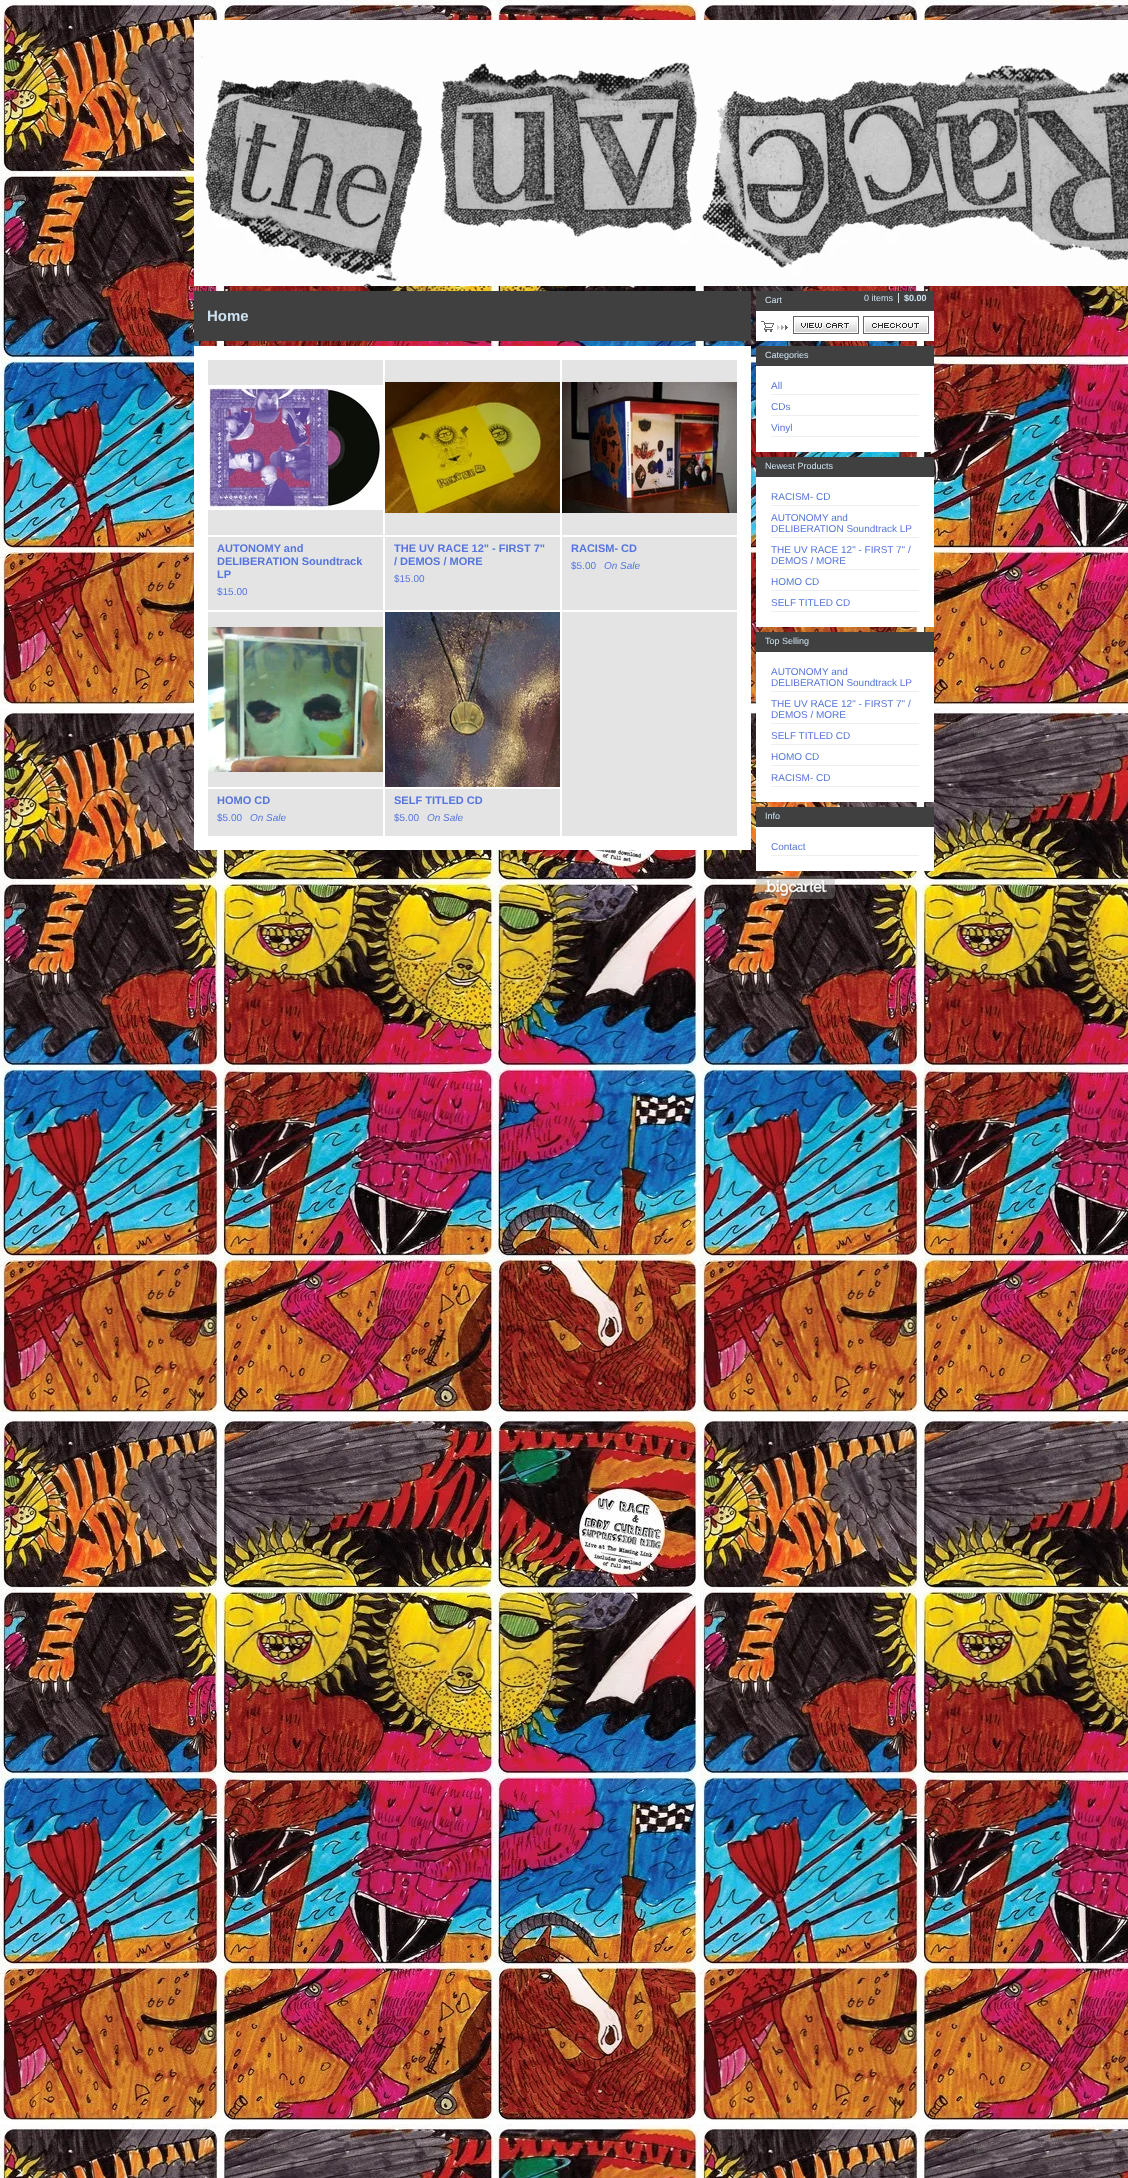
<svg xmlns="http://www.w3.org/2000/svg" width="1128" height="2178">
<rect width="100%" height="100%" fill="#fff"/>
<image x="0" y="0" width="1128" height="2178" href="media/1.png"/>
<image x="194" y="20" width="934" height="266" href="media/2.png"/>
<rect x="194" y="291" width="557" height="50" fill="#404040"/>
<text x="207" y="321" style="font-family:Liberation Sans;font-size:15px;font-weight:bold;fill:#cde2f0">Home</text>
<rect x="194" y="346" width="557" height="504" fill="#fff"/>
<rect x="208" y="360" width="529" height="476" fill="#e4e4e4"/>
<image x="383" y="360" width="179" height="476" href="media/3.png"/>
<image x="208" y="385" width="175" height="125" href="media/4.png"/>
<rect x="208" y="535" width="175" height="2" fill="#fff"/>
<text x="217" y="552" style="font-family:Liberation Sans;font-size:11px;font-weight:bold;fill:#5575dd">AUTONOMY and</text>
<text x="217" y="565" style="font-family:Liberation Sans;font-size:11px;font-weight:bold;fill:#5575dd">DELIBERATION Soundtrack</text>
<text x="217" y="578" style="font-family:Liberation Sans;font-size:11px;font-weight:bold;fill:#5575dd">LP</text>
<text x="217" y="595" style="font-family:Liberation Sans;font-size:10px;fill:#5575dd">$15.00</text>
<image x="385" y="382" width="175" height="131" href="media/5.png"/>
<rect x="385" y="535" width="175" height="2" fill="#fff"/>
<text x="394" y="552" style="font-family:Liberation Sans;font-size:11px;font-weight:bold;fill:#5575dd">THE UV RACE 12" - FIRST 7"</text>
<text x="394" y="565" style="font-family:Liberation Sans;font-size:11px;font-weight:bold;fill:#5575dd">/ DEMOS / MORE</text>
<text x="394" y="582" style="font-family:Liberation Sans;font-size:10px;fill:#5575dd">$15.00</text>
<image x="562" y="382" width="175" height="131" href="media/6.png"/>
<rect x="562" y="535" width="175" height="2" fill="#fff"/>
<text x="571" y="552" style="font-family:Liberation Sans;font-size:11px;font-weight:bold;fill:#5575dd">RACISM- CD</text>
<text x="571" y="569" style="font-family:Liberation Sans;font-size:10px;fill:#5575dd">$5.00</text>
<text x="604" y="569" style="font-family:Liberation Sans;font-size:10px;font-style:italic;fill:#5575dd">On Sale</text>
<rect x="208" y="610" width="529" height="2" fill="#fff"/>
<image x="208" y="627" width="175" height="145" href="media/7.png"/>
<rect x="208" y="787" width="175" height="2" fill="#fff"/>
<text x="217" y="804" style="font-family:Liberation Sans;font-size:11px;font-weight:bold;fill:#5575dd">HOMO CD</text>
<text x="217" y="821" style="font-family:Liberation Sans;font-size:10px;fill:#5575dd">$5.00</text>
<text x="250" y="821" style="font-family:Liberation Sans;font-size:10px;font-style:italic;fill:#5575dd">On Sale</text>
<image x="385" y="612" width="175" height="175" href="media/8.png"/>
<rect x="385" y="787" width="175" height="2" fill="#fff"/>
<text x="394" y="804" style="font-family:Liberation Sans;font-size:11px;font-weight:bold;fill:#5575dd">SELF TITLED CD</text>
<text x="394" y="821" style="font-family:Liberation Sans;font-size:10px;fill:#5575dd">$5.00</text>
<text x="427" y="821" style="font-family:Liberation Sans;font-size:10px;font-style:italic;fill:#5575dd">On Sale</text>
<rect x="756" y="311" width="178" height="30" fill="#fff"/>
<image x="761" y="321" width="27" height="11" href="media/9.png"/>
<rect x="756" y="291" width="178" height="20" fill="#404040"/>
<text x="765" y="303" style="font-family:Liberation Sans;font-size:9px;fill:#cde2f0">Cart</text>
<text x="864" y="301" style="font-family:Liberation Sans;font-size:9px;fill:#cde2f0">0 items</text>
<rect x="898" y="293" width="1" height="10" fill="#cde2f0"/>
<text x="904" y="301" style="font-family:Liberation Sans;font-size:9px;font-weight:bold;fill:#cde2f0">$0.00</text>
<image x="793" y="316" width="66" height="18" href="media/10.png"/>
<image x="863" y="316" width="66" height="18" href="media/11.png"/>
<rect x="756" y="366" width="178" height="86" fill="#fff"/>
<rect x="756" y="346" width="178" height="20" fill="#404040"/>
<text x="765" y="358" style="font-family:Liberation Sans;font-size:9px;fill:#cde2f0">Categories</text>
<rect x="771" y="394" width="148" height="1" fill="#efefef"/>
<text x="771" y="389" style="font-family:Liberation Sans;font-size:10px;fill:#5575dd">All</text>
<rect x="771" y="415" width="148" height="1" fill="#efefef"/>
<text x="771" y="410" style="font-family:Liberation Sans;font-size:10px;fill:#5575dd">CDs</text>
<rect x="771" y="436" width="148" height="1" fill="#efefef"/>
<text x="771" y="431" style="font-family:Liberation Sans;font-size:10px;fill:#5575dd">Vinyl</text>
<rect x="756" y="477" width="178" height="150" fill="#fff"/>
<rect x="756" y="457" width="178" height="20" fill="#404040"/>
<text x="765" y="469" style="font-family:Liberation Sans;font-size:9px;fill:#cde2f0">Newest Products</text>
<rect x="771" y="505" width="148" height="1" fill="#efefef"/>
<text x="771" y="500" style="font-family:Liberation Sans;font-size:10px;fill:#5575dd">RACISM- CD</text>
<rect x="771" y="537" width="148" height="1" fill="#efefef"/>
<text x="771" y="521" style="font-family:Liberation Sans;font-size:10px;fill:#5575dd">AUTONOMY and</text>
<text x="771" y="532" style="font-family:Liberation Sans;font-size:10px;fill:#5575dd">DELIBERATION Soundtrack LP</text>
<rect x="771" y="569" width="148" height="1" fill="#efefef"/>
<text x="771" y="553" style="font-family:Liberation Sans;font-size:10px;fill:#5575dd">THE UV RACE 12" - FIRST 7" /</text>
<text x="771" y="564" style="font-family:Liberation Sans;font-size:10px;fill:#5575dd">DEMOS / MORE</text>
<rect x="771" y="590" width="148" height="1" fill="#efefef"/>
<text x="771" y="585" style="font-family:Liberation Sans;font-size:10px;fill:#5575dd">HOMO CD</text>
<rect x="771" y="611" width="148" height="1" fill="#efefef"/>
<text x="771" y="606" style="font-family:Liberation Sans;font-size:10px;fill:#5575dd">SELF TITLED CD</text>
<rect x="756" y="652" width="178" height="150" fill="#fff"/>
<rect x="756" y="632" width="178" height="20" fill="#404040"/>
<text x="765" y="644" style="font-family:Liberation Sans;font-size:9px;fill:#cde2f0">Top Selling</text>
<rect x="771" y="691" width="148" height="1" fill="#efefef"/>
<text x="771" y="675" style="font-family:Liberation Sans;font-size:10px;fill:#5575dd">AUTONOMY and</text>
<text x="771" y="686" style="font-family:Liberation Sans;font-size:10px;fill:#5575dd">DELIBERATION Soundtrack LP</text>
<rect x="771" y="723" width="148" height="1" fill="#efefef"/>
<text x="771" y="707" style="font-family:Liberation Sans;font-size:10px;fill:#5575dd">THE UV RACE 12" - FIRST 7" /</text>
<text x="771" y="718" style="font-family:Liberation Sans;font-size:10px;fill:#5575dd">DEMOS / MORE</text>
<rect x="771" y="744" width="148" height="1" fill="#efefef"/>
<text x="771" y="739" style="font-family:Liberation Sans;font-size:10px;fill:#5575dd">SELF TITLED CD</text>
<rect x="771" y="765" width="148" height="1" fill="#efefef"/>
<text x="771" y="760" style="font-family:Liberation Sans;font-size:10px;fill:#5575dd">HOMO CD</text>
<rect x="771" y="786" width="148" height="1" fill="#efefef"/>
<text x="771" y="781" style="font-family:Liberation Sans;font-size:10px;fill:#5575dd">RACISM- CD</text>
<rect x="756" y="827" width="178" height="44" fill="#fff"/>
<rect x="756" y="807" width="178" height="20" fill="#404040"/>
<text x="765" y="819" style="font-family:Liberation Sans;font-size:9px;fill:#cde2f0">Info</text>
<rect x="771" y="855" width="148" height="1" fill="#efefef"/>
<text x="771" y="850" style="font-family:Liberation Sans;font-size:10px;fill:#5575dd">Contact</text>
<image x="756" y="876" width="79" height="23" href="media/12.png"/>
</svg>
